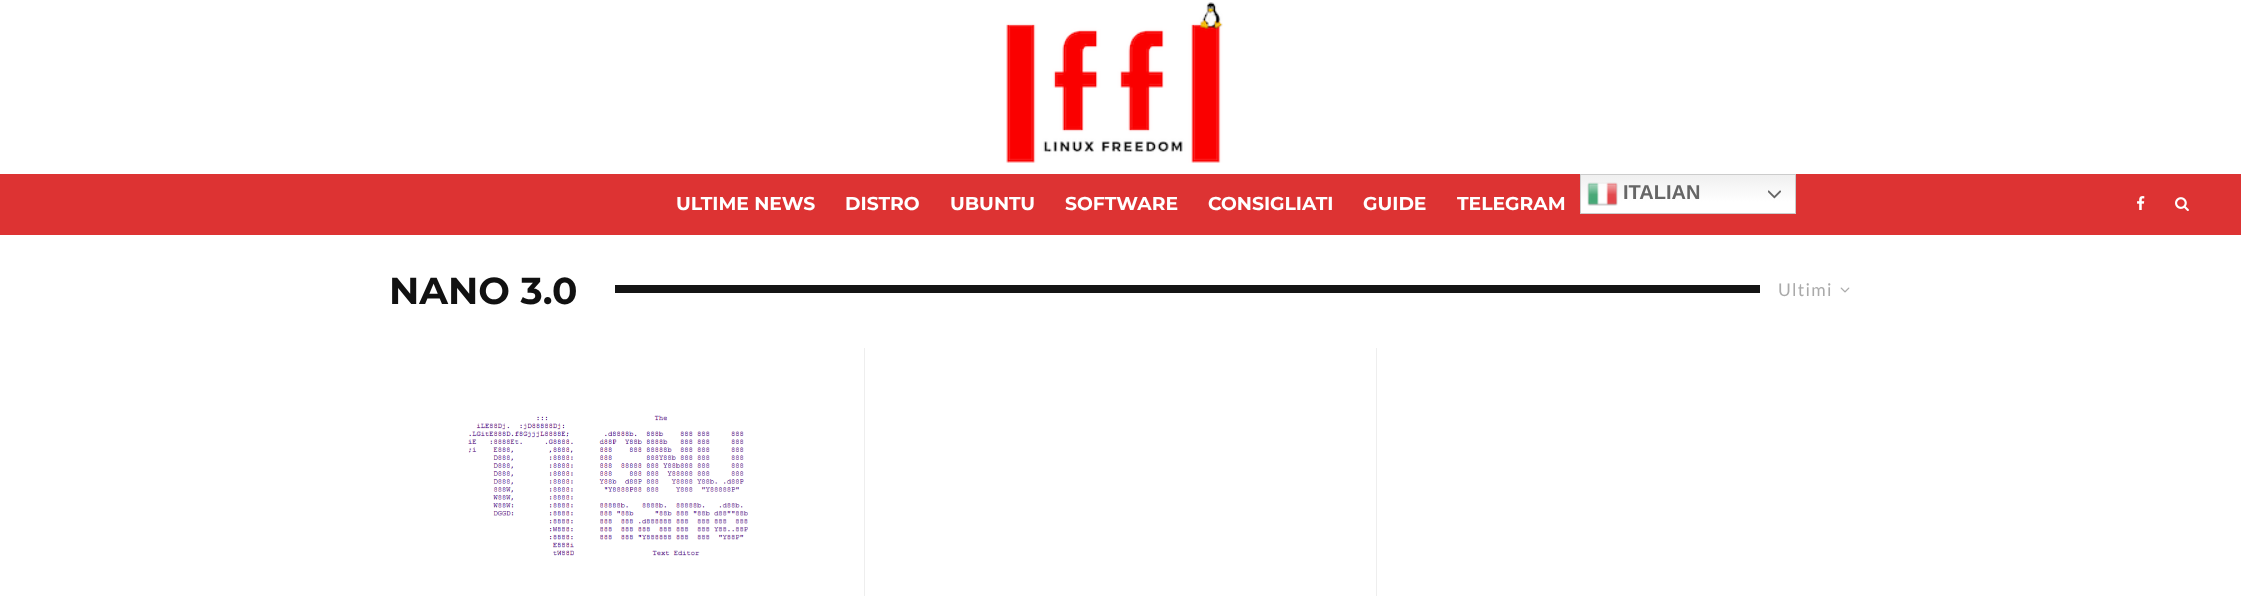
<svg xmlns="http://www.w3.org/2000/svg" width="2241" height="596">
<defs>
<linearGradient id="g1" gradientUnits="userSpaceOnUse" x1="1688" y1="174" x2="1688" y2="214"><stop offset="0" stop-color="#efefef"/><stop offset="0.7" stop-color="#fff"/></linearGradient>
</defs>
<rect width="100%" height="100%" fill="#fff"/>
<image x="1006" y="2" width="217" height="161" href="media/1.png"/>
<rect y="174" width="2241" height="61" fill="#d33"/>
<rect x="1581" y="175" width="214" height="38" fill="url(#g1)"/>
<rect x="1580.5" y="174.5" width="215" height="39" fill="none" stroke="#ccc"/>
<image x="1587" y="182" width="31" height="24" href="media/2.png"/>
<text x="1623" y="199" style="font-family:Liberation Sans;font-size:20px;font-weight:bold;fill:#666">ITALIAN</text>
<image x="1768" y="190" width="13" height="9" href="media/3.png"/>
<text x="676" y="210" style="font-family:Montserrat;font-size:18.75px;font-weight:bold;fill:#fff">ULTIME NEWS</text>
<text x="845" y="210" style="font-family:Montserrat;font-size:18.75px;font-weight:bold;fill:#fff">DISTRO</text>
<text x="950" y="210" style="font-family:Montserrat;font-size:18.75px;font-weight:bold;fill:#fff">UBUNTU</text>
<text x="1065" y="210" style="font-family:Montserrat;font-size:18.75px;font-weight:bold;fill:#fff">SOFTWARE</text>
<text x="1208" y="210" style="font-family:Montserrat;font-size:18.75px;font-weight:bold;fill:#fff">CONSIGLIATI</text>
<text x="1363" y="210" style="font-family:Montserrat;font-size:18.75px;font-weight:bold;fill:#fff">GUIDE</text>
<text x="1457" y="210" style="font-family:Montserrat;font-size:18.75px;font-weight:bold;fill:#fff">TELEGRAM</text>
<image x="2137" y="196" width="8" height="14" href="media/4.png"/>
<image x="2175" y="197" width="14" height="15" href="media/5.png"/>
<text x="389" y="304" style="font-family:Montserrat;font-size:37.5px;font-weight:bold;fill:#111">NANO 3.0</text>
<rect x="615" y="285" width="1145" height="8" fill="#141414"/>
<text x="1778" y="296" style="font-family:Lato;font-size:17.5px;letter-spacing:1.25px;fill:#aaa">Ultimi</text>
<image x="1840" y="287" width="10" height="6" href="media/6.png"/>
<image x="390" y="348" width="438" height="248" href="media/7.png"/>
<rect x="864" y="348" width="1" height="248" fill="#eee"/>
<rect x="1376" y="348" width="1" height="248" fill="#eee"/>
</svg>
